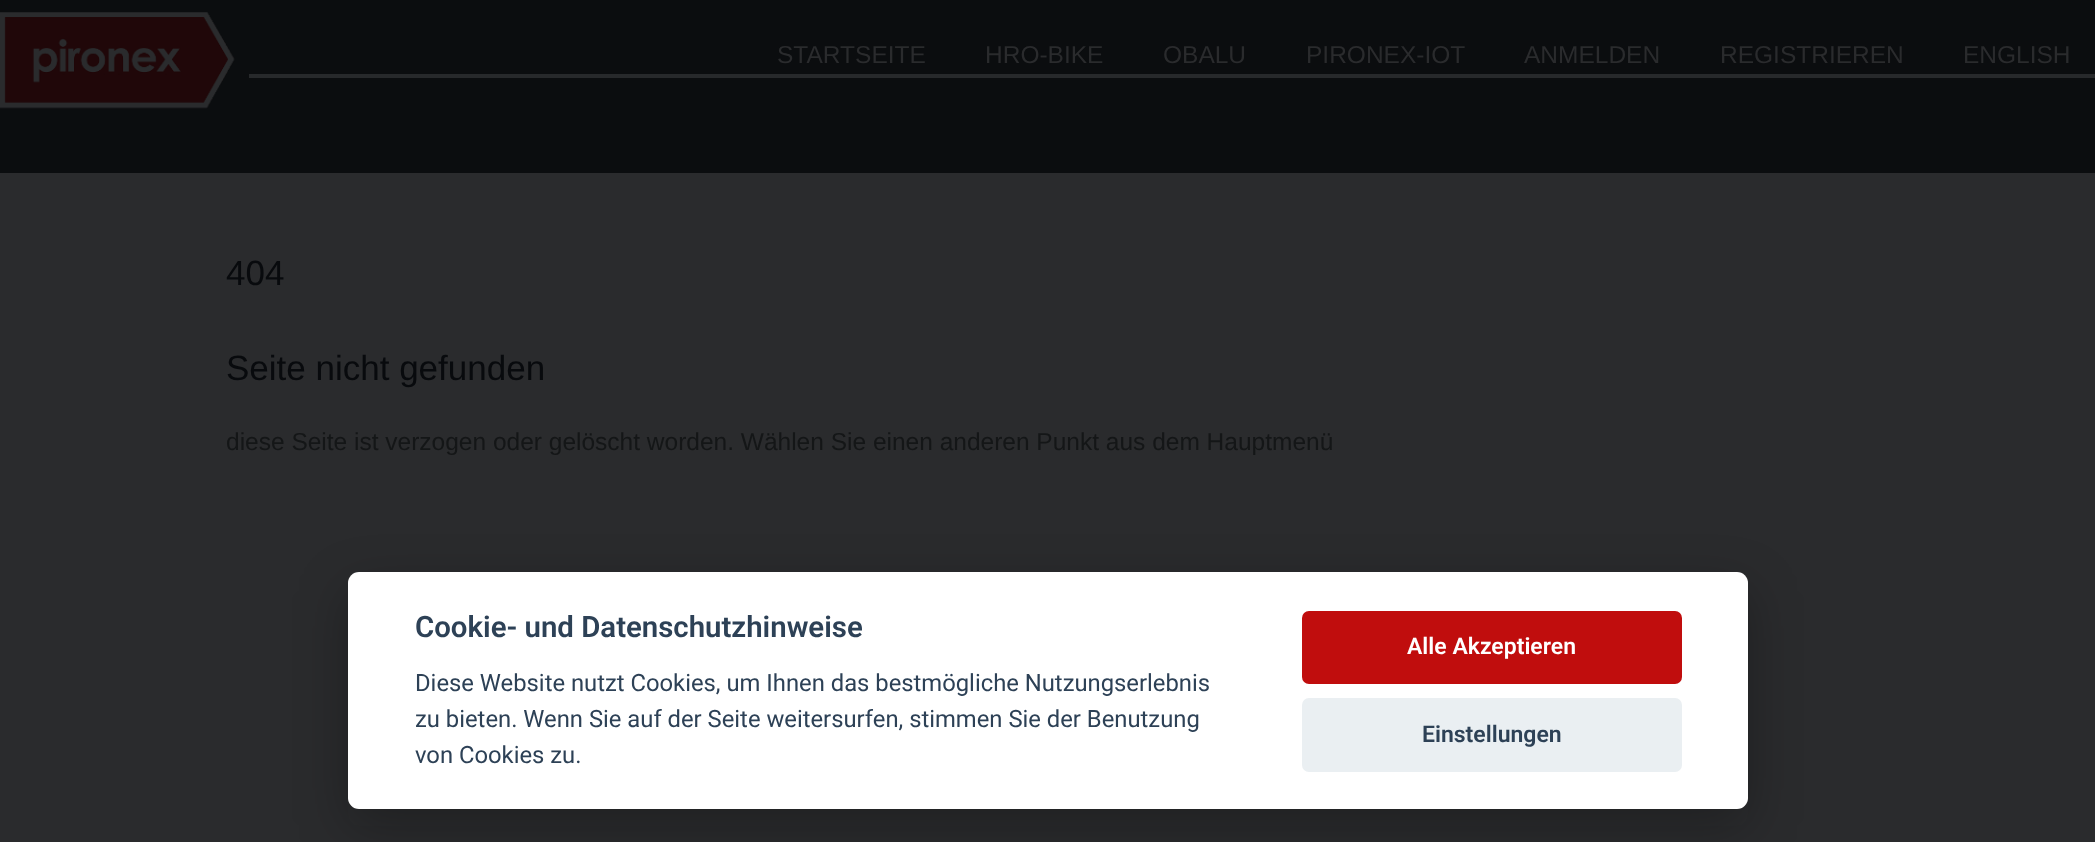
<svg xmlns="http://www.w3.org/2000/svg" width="2095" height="842">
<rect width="100%" height="100%" fill="#2a2b2d"/>
<rect width="2095" height="173" fill="#0b0d0f"/>
<image x="0" y="12" width="235" height="97" href="media/1.png"/>
<text x="777" y="63" style="font-family:Liberation Sans;font-size:24.5px;fill:#2a2b2d">STARTSEITE</text>
<text x="985" y="63" style="font-family:Liberation Sans;font-size:24.5px;fill:#2a2b2d">HRO-BIKE</text>
<text x="1163" y="63" style="font-family:Liberation Sans;font-size:24.5px;fill:#2a2b2d">OBALU</text>
<text x="1306" y="63" style="font-family:Liberation Sans;font-size:24.5px;fill:#2a2b2d">PIRONEX-IOT</text>
<text x="1524" y="63" style="font-family:Liberation Sans;font-size:24.5px;fill:#2a2b2d">ANMELDEN</text>
<text x="1720" y="63" style="font-family:Liberation Sans;font-size:24.5px;fill:#2a2b2d">REGISTRIEREN</text>
<text x="1963" y="63" style="font-family:Liberation Sans;font-size:24.5px;fill:#2a2b2d">ENGLISH</text>
<rect x="249" y="74" width="1846" height="4" fill="#27292b"/>
<text x="226" y="285" style="font-family:Liberation Sans;font-size:35px;fill:#080a0d">404</text>
<text x="226" y="380" style="font-family:Liberation Sans;font-size:35px;fill:#080a0d">Seite nicht gefunden</text>
<text x="226" y="450" style="font-family:Liberation Sans;font-size:24.5px;fill:#141617">diese Seite ist verzogen oder gelöscht worden. Wählen Sie einen anderen Punkt aus dem Hauptmenü</text>
<rect x="348" y="590" width="1400" height="236" rx="11" fill="#02020347" filter="blur(26px)"/>
<rect x="348" y="572" width="1400" height="237" rx="11" fill="#fff"/>
<text x="415" y="637" style="font-family:Roboto;font-size:29.4px;font-weight:600;fill:#2d4156">Cookie- und Datenschutzhinweise</text>
<text x="415" y="691" style="font-family:Roboto;font-size:23.8px;fill:#2d4156">Diese Website nutzt Cookies, um Ihnen das bestmögliche Nutzungserlebnis</text>
<text x="415" y="727" style="font-family:Roboto;font-size:23.8px;fill:#2d4156">zu bieten. Wenn Sie auf der Seite weitersurfen, stimmen Sie der Benutzung</text>
<text x="415" y="763" style="font-family:Roboto;font-size:23.8px;fill:#2d4156">von Cookies zu.</text>
<rect x="1302" y="611" width="380" height="73" rx="7" fill="#c00d0d"/>
<text x="1407" y="654" style="font-family:Roboto;font-size:23px;font-weight:600;fill:#fff">Alle Akzeptieren</text>
<rect x="1302" y="698" width="380" height="74" rx="7" fill="#eaeff2"/>
<text x="1422" y="742" style="font-family:Roboto;font-size:23px;font-weight:600;fill:#2d4156">Einstellungen</text>
</svg>
